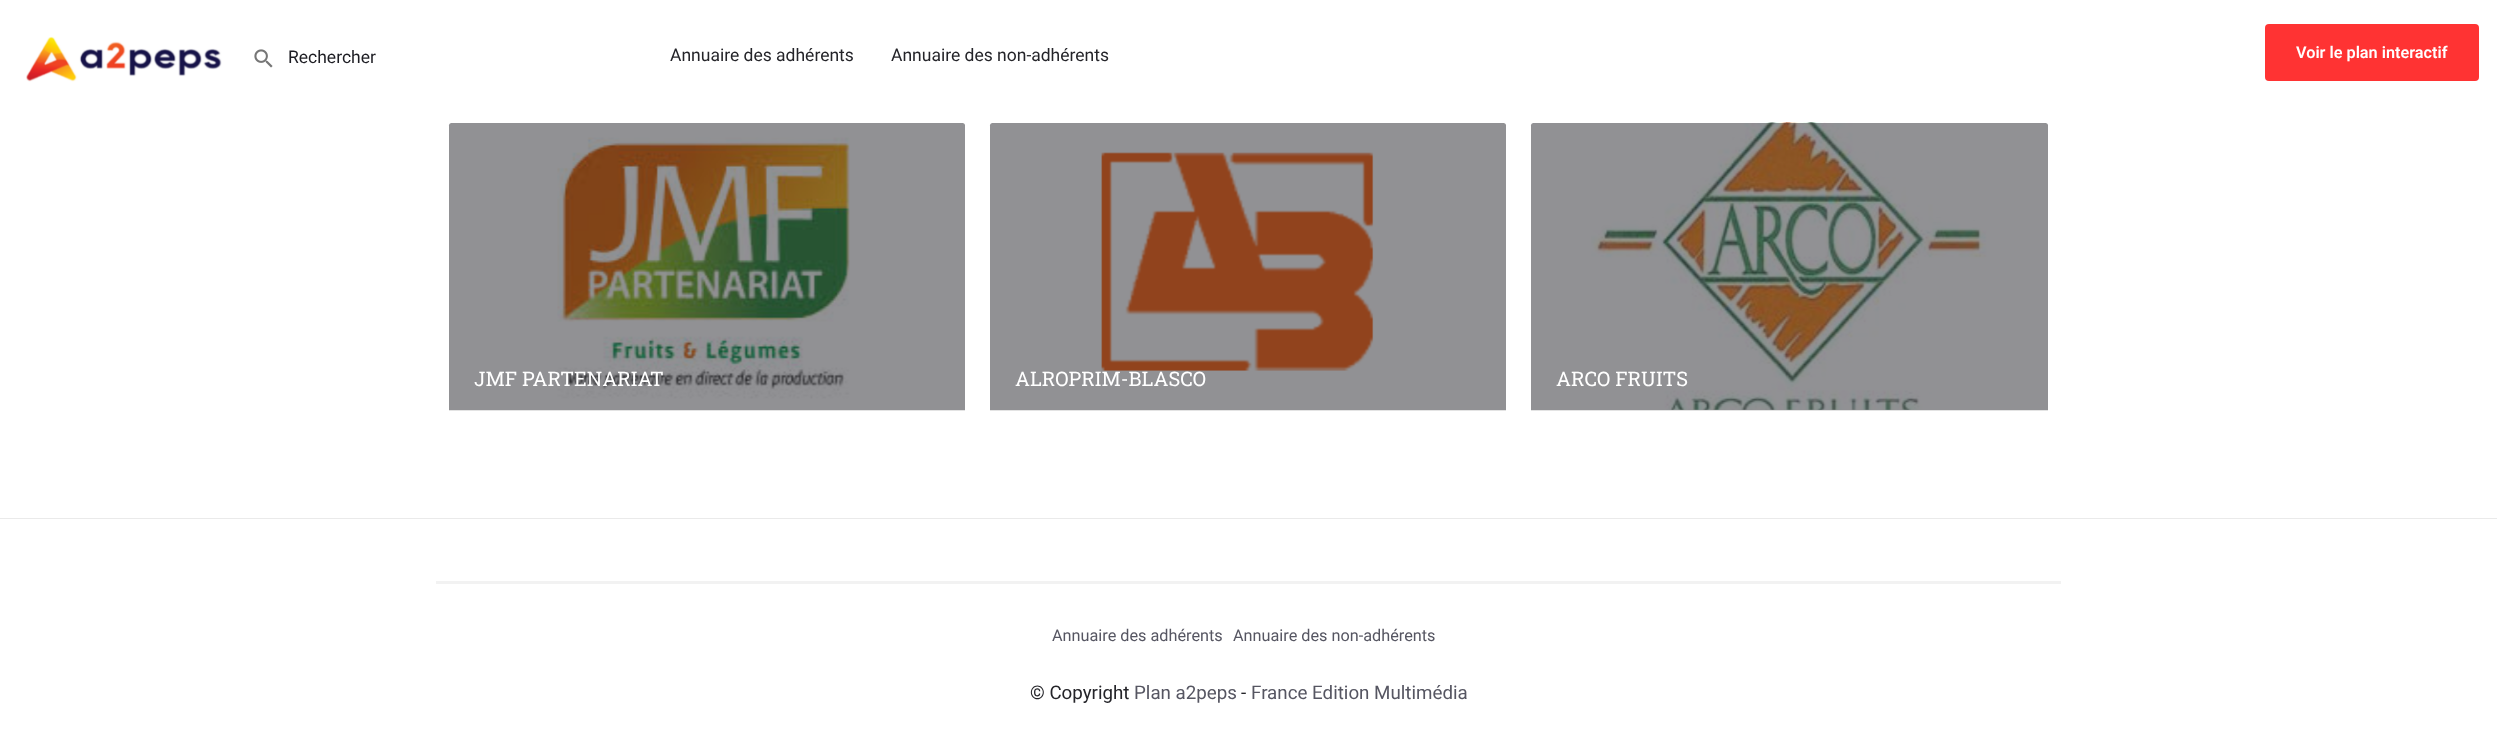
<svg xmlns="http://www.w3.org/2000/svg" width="2497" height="739">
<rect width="100%" height="100%" fill="#fff"/>
<rect y="518" width="2497" height="1" fill="#eaeaea"/>
<image x="254" y="49" width="19" height="19" href="media/1.png"/>
<text x="288" y="63" style="font-family:Roboto;font-size:17.5px;fill:#1d1d23">Rechercher</text>
<text x="670" y="61" style="font-family:Roboto;font-size:17.5px;fill:#242429">Annuaire des adhérents</text>
<text x="891" y="61" style="font-family:Roboto;font-size:17.5px;fill:#242429">Annuaire des non-adhérents</text>
<image x="26" y="36" width="196" height="46" href="media/2.png"/>
<rect x="2265" y="24" width="214" height="57" rx="4" fill="#f33"/>
<text x="2296" y="58" style="font-family:Roboto;font-size:16.25px;font-weight:600;fill:#fff">Voir le plan interactif</text>
<image x="557" y="137" width="293" height="262" href="media/3.png"/>
<path d="M451.5 123h511c1.5 0 2.5 1 2.5 2.5v284.5h-516v-284.5c0-1.5 1-2.5 2.5-2.5z" fill="#24242980"/>
<text x="474" y="386" style="font-family:Roboto Slab;font-size:20px;fill:#fff">JMF PARTENARIAT</text>
<rect x="449" y="410" width="516" height="1" fill="#e3e3e3"/>
<image x="1101" y="152" width="273" height="219" href="media/4.png"/>
<path d="M992.5 123h511c1.5 0 2.5 1 2.5 2.5v284.5h-516v-284.5c0-1.5 1-2.5 2.5-2.5z" fill="#24242980"/>
<text x="1015" y="386" style="font-family:Roboto Slab;font-size:20px;fill:#fff">ALROPRIM-BLASCO</text>
<rect x="990" y="410" width="516" height="1" fill="#e3e3e3"/>
<image x="1591" y="122" width="396" height="288" href="media/5.png"/>
<path d="M1533.5 123h512c1.5 0 2.5 1 2.5 2.5v284.5h-517v-284.5c0-1.5 1-2.5 2.5-2.5z" fill="#24242980"/>
<text x="1556" y="386" style="font-family:Roboto Slab;font-size:20px;fill:#fff">ARCO FRUITS</text>
<rect x="1531" y="410" width="517" height="1" fill="#e3e3e3"/>
<rect x="436" y="581" width="1625" height="3" fill="#f2f2f2"/>
<text x="1052" y="641" style="font-family:Roboto;font-size:16.25px;fill:#565662">Annuaire des adhérents</text>
<text x="1233" y="641" style="font-family:Roboto;font-size:16.25px;fill:#565662">Annuaire des non-adhérents</text>
<text x="1030" y="699" style="font-family:Roboto;font-size:18.75px;fill:#242429">© Copyright</text>
<text x="1134" y="699" style="font-family:Roboto;font-size:18.75px;fill:#565662">Plan a2peps</text>
<text x="1241" y="699" style="font-family:Roboto;font-size:18.75px;fill:#242429">-</text>
<text x="1251" y="699" style="font-family:Roboto;font-size:18.75px;fill:#565662">France Edition Multimédia</text>
</svg>
